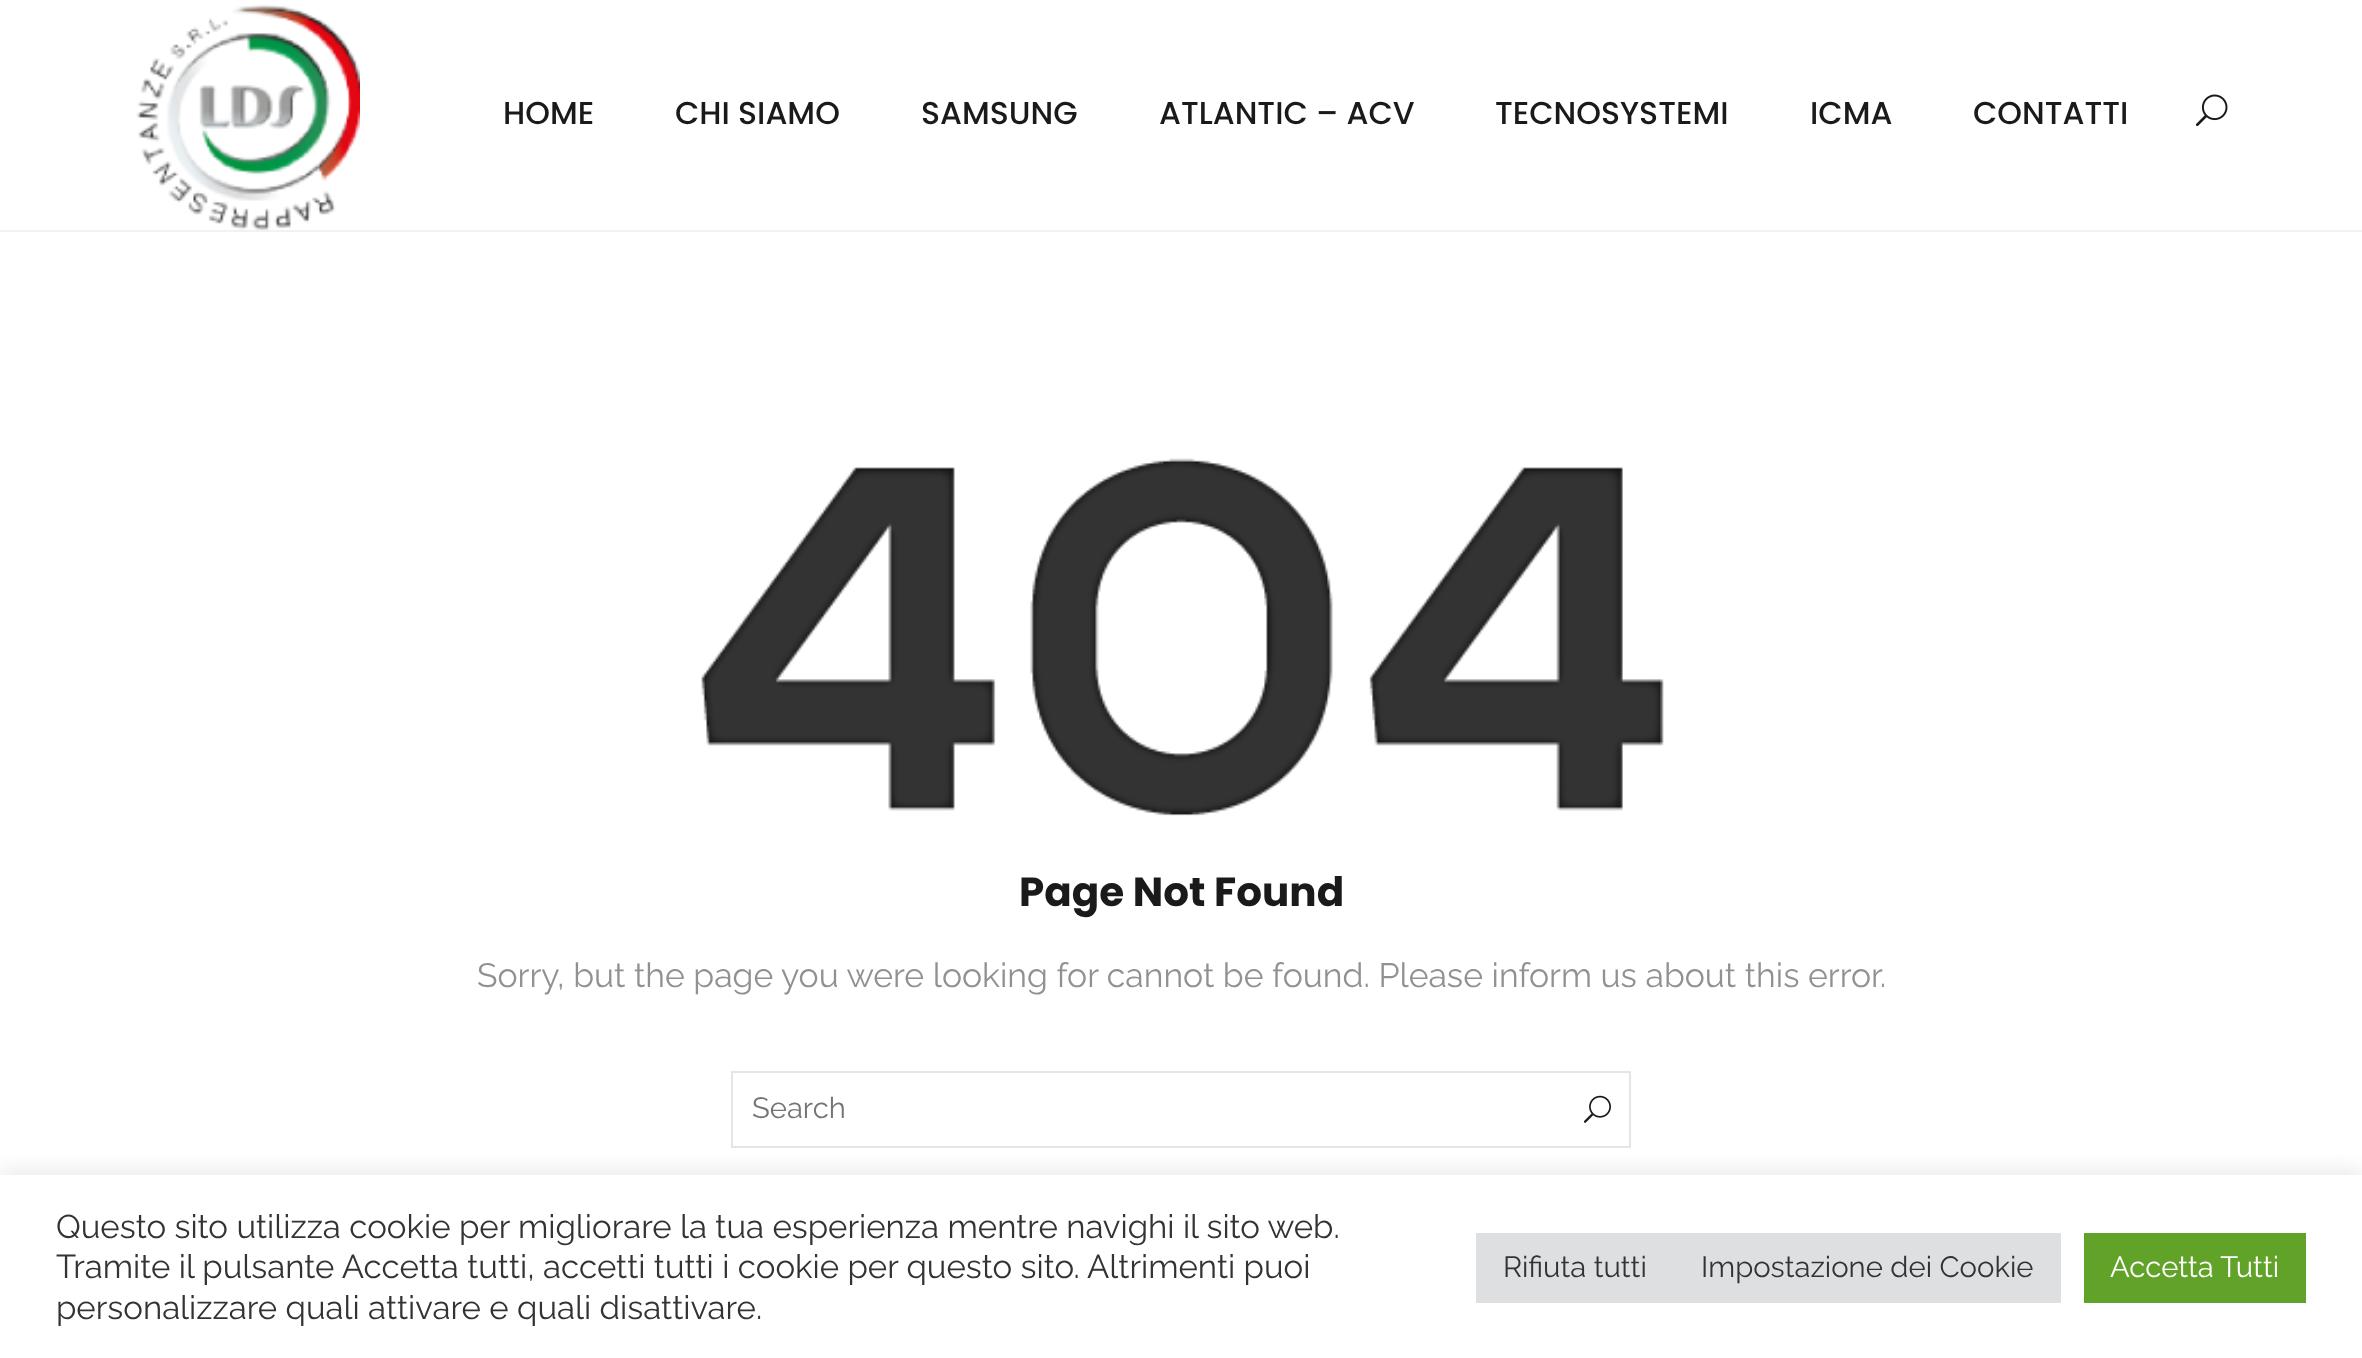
<svg xmlns="http://www.w3.org/2000/svg" width="2362" height="1358">
<defs>
<clipPath id="clip1"><rect x="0" y="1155" width="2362" height="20"/></clipPath>
</defs>
<rect width="100%" height="100%" fill="#fff"/>
<rect y="230" width="2362" height="2" fill="#f1f2f2"/>
<image x="136" y="4" width="224" height="226" href="media/1.png"/>
<text x="503" y="124" style="font-family:Poppins;font-size:31.5px;font-weight:500;fill:#1a1a1a">HOME</text>
<text x="675" y="124" style="font-family:Poppins;font-size:31.5px;font-weight:500;fill:#1a1a1a">CHI SIAMO</text>
<text x="921" y="124" style="font-family:Poppins;font-size:31.5px;font-weight:500;fill:#1a1a1a">SAMSUNG</text>
<text x="1159" y="124" style="font-family:Poppins;font-size:31.5px;font-weight:500;fill:#1a1a1a">ATLANTIC – ACV</text>
<text x="1495" y="124" style="font-family:Poppins;font-size:31.5px;font-weight:500;fill:#1a1a1a">TECNOSYSTEMI</text>
<text x="1810" y="124" style="font-family:Poppins;font-size:31.5px;font-weight:500;fill:#1a1a1a">ICMA</text>
<text x="1973" y="124" style="font-family:Poppins;font-size:31.5px;font-weight:500;fill:#1a1a1a">CONTATTI</text>
<image x="2195" y="94" width="33" height="33" href="media/2.png"/>
<image x="701" y="458" width="963" height="358" href="media/3.png"/>
<text x="1019" y="906" style="font-family:Poppins;font-size:40.5px;font-weight:bold;fill:#1a1a1a">Page Not Found</text>
<text x="477" y="987" style="font-family:Raleway;font-size:33.75px;fill:#919191">Sorry, but the page you were looking for cannot be found. Please inform us about this error.</text>
<rect x="732" y="1072" width="898" height="75" fill="none" stroke="#e5e5e5" stroke-width="2"/>
<text x="752" y="1118" style="font-family:Raleway;font-size:29.25px;fill:#757575">Search</text>
<image x="1583" y="1095" width="28" height="28" href="media/4.png"/>
<g clip-path="url(#clip1)">
<rect y="1172" width="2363" height="185" fill="#acabab4d" filter="blur(11px)"/>
</g>
<text x="56" y="1238" style="font-family:Raleway;font-size:33px;fill:#333">Questo sito utilizza cookie per migliorare la tua esperienza mentre navighi il sito web.</text>
<text x="56" y="1278" style="font-family:Raleway;font-size:33px;fill:#333">Tramite il pulsante Accetta tutti, accetti tutti i cookie per questo sito. Altrimenti puoi</text>
<text x="56" y="1319" style="font-family:Raleway;font-size:33px;fill:#333">personalizzare quali attivare e quali disattivare.</text>
<rect x="1476" y="1233" width="585" height="70" fill="#dedfe0"/>
<text x="1503" y="1277" style="font-family:Raleway;font-size:29.25px;fill:#333">Rifiuta tutti</text>
<text x="1701" y="1277" style="font-family:Raleway;font-size:29.25px;fill:#333">Impostazione dei Cookie</text>
<rect x="2084" y="1233" width="222" height="70" fill="#61a229"/>
<text x="2110" y="1277" style="font-family:Raleway;font-size:29.25px;fill:#fff">Accetta Tutti</text>
</svg>
